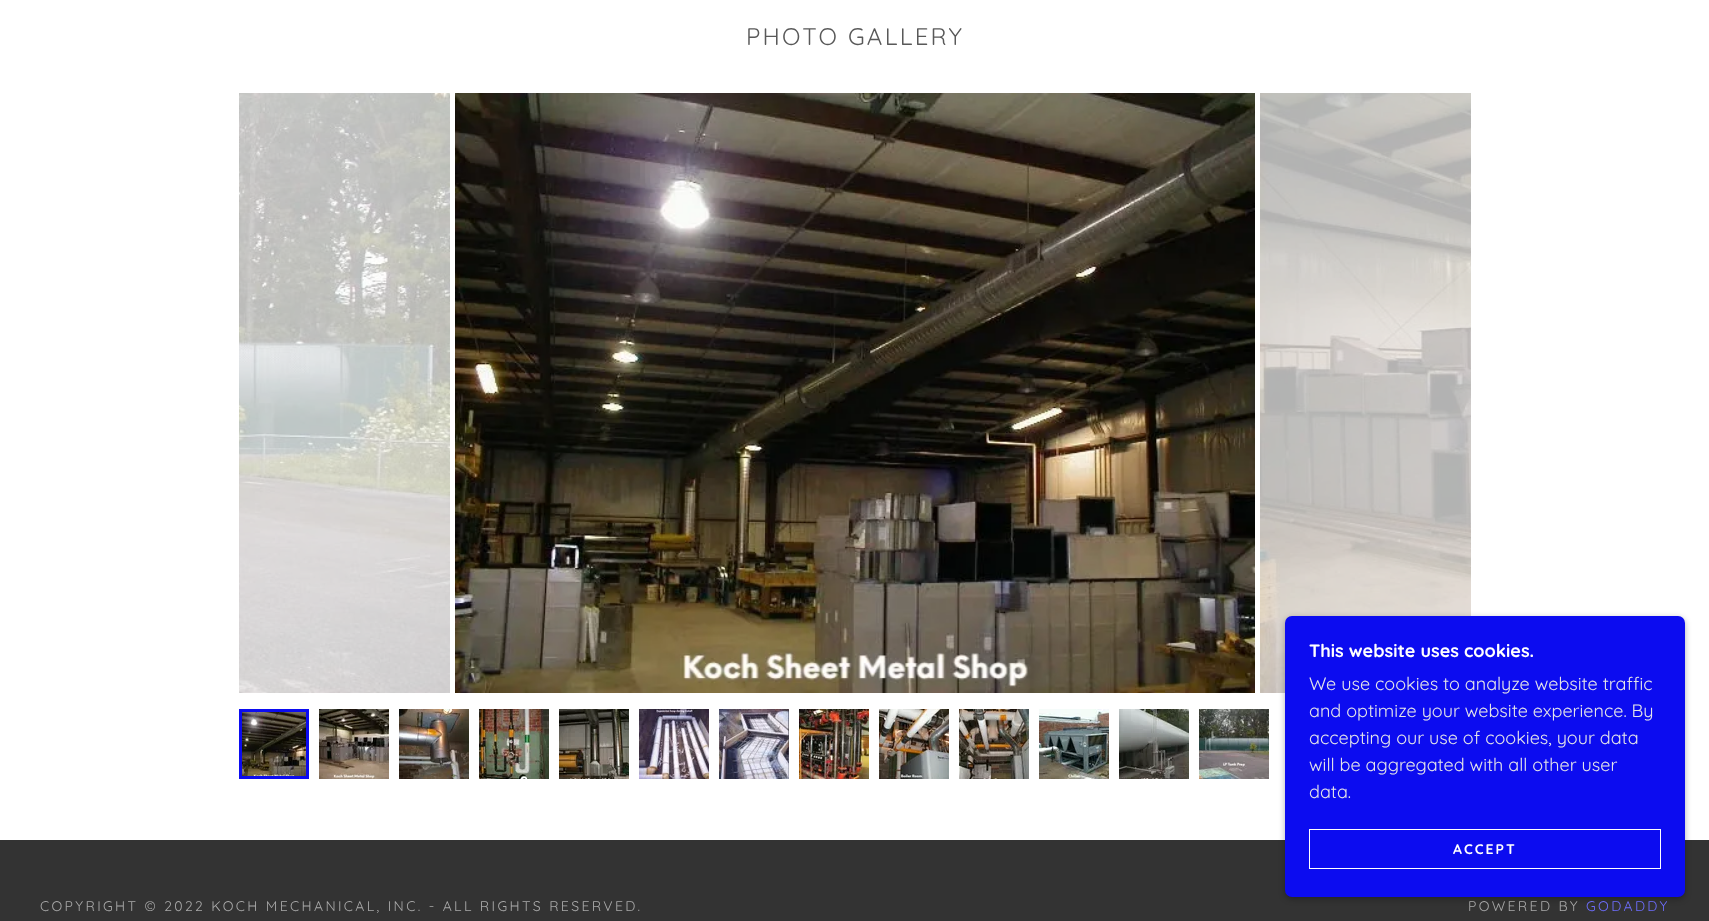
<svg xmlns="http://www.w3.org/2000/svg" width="1709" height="921">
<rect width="100%" height="100%" fill="#333"/>
<rect width="1709" height="840" fill="#fff"/>
<text x="746" y="45" style="font-family:Quicksand;font-size:24px;letter-spacing:2.25px;fill:#595959">PHOTO GALLERY</text>
<image x="239" y="93" width="211" height="600" href="media/1.png"/>
<image x="455" y="93" width="800" height="600" href="media/2.png"/>
<image x="1260" y="93" width="211" height="600" href="media/3.png"/>
<image x="242" y="712" width="64" height="64" href="media/4.png"/>
<rect x="240.5" y="710.5" width="67" height="67" fill="none" stroke="#0c0cf0" stroke-width="3"/>
<image x="319" y="709" width="70" height="70" href="media/5.png"/>
<image x="399" y="709" width="70" height="70" href="media/6.png"/>
<image x="479" y="709" width="70" height="70" href="media/7.png"/>
<image x="559" y="709" width="70" height="70" href="media/8.png"/>
<image x="639" y="709" width="70" height="70" href="media/9.png"/>
<image x="719" y="709" width="70" height="70" href="media/10.png"/>
<image x="799" y="709" width="70" height="70" href="media/11.png"/>
<image x="879" y="709" width="70" height="70" href="media/12.png"/>
<image x="959" y="709" width="70" height="70" href="media/13.png"/>
<image x="1039" y="709" width="70" height="70" href="media/14.png"/>
<image x="1119" y="709" width="70" height="70" href="media/15.png"/>
<image x="1199" y="709" width="70" height="70" href="media/16.png"/>
<rect x="1285" y="618" width="400" height="281" rx="7" fill="#0000004d" filter="blur(3px)"/>
<rect x="1285" y="616" width="400" height="281" rx="7" fill="#0c0cf0"/>
<text x="1309" y="657" style="font-family:Quicksand;font-size:18px;font-weight:bold;fill:#fff">This website uses cookies.</text>
<text x="1309" y="690" style="font-family:Quicksand;font-size:18px;fill:#e5e5e8">We use cookies to analyze website traffic</text>
<text x="1309" y="717" style="font-family:Quicksand;font-size:18px;fill:#e5e5e8">and optimize your website experience. By</text>
<text x="1309" y="744" style="font-family:Quicksand;font-size:18px;fill:#e5e5e8">accepting our use of cookies, your data</text>
<text x="1309" y="771" style="font-family:Quicksand;font-size:18px;fill:#e5e5e8">will be aggregated with all other user</text>
<text x="1309" y="798" style="font-family:Quicksand;font-size:18px;fill:#e5e5e8">data.</text>
<rect x="1309.5" y="829.5" width="351" height="39" fill="none" stroke="#fff"/>
<text x="1453" y="854" style="font-family:Quicksand;font-size:14px;font-weight:bold;letter-spacing:2px;fill:#fff">ACCEPT</text>
<text x="40" y="911" style="font-family:Quicksand;font-size:14px;letter-spacing:2.35px;fill:#a9a9a9">COPYRIGHT © 2022 KOCH MECHANICAL, INC. - ALL RIGHTS RESERVED.</text>
<text x="1468" y="911" style="font-family:Quicksand;font-size:14px;letter-spacing:2.35px;fill:#a9a9a9">POWERED BY</text>
<text x="1586" y="911" style="font-family:Quicksand;font-size:14px;letter-spacing:2.35px;fill:#6e6eff">GODADDY</text>
</svg>
